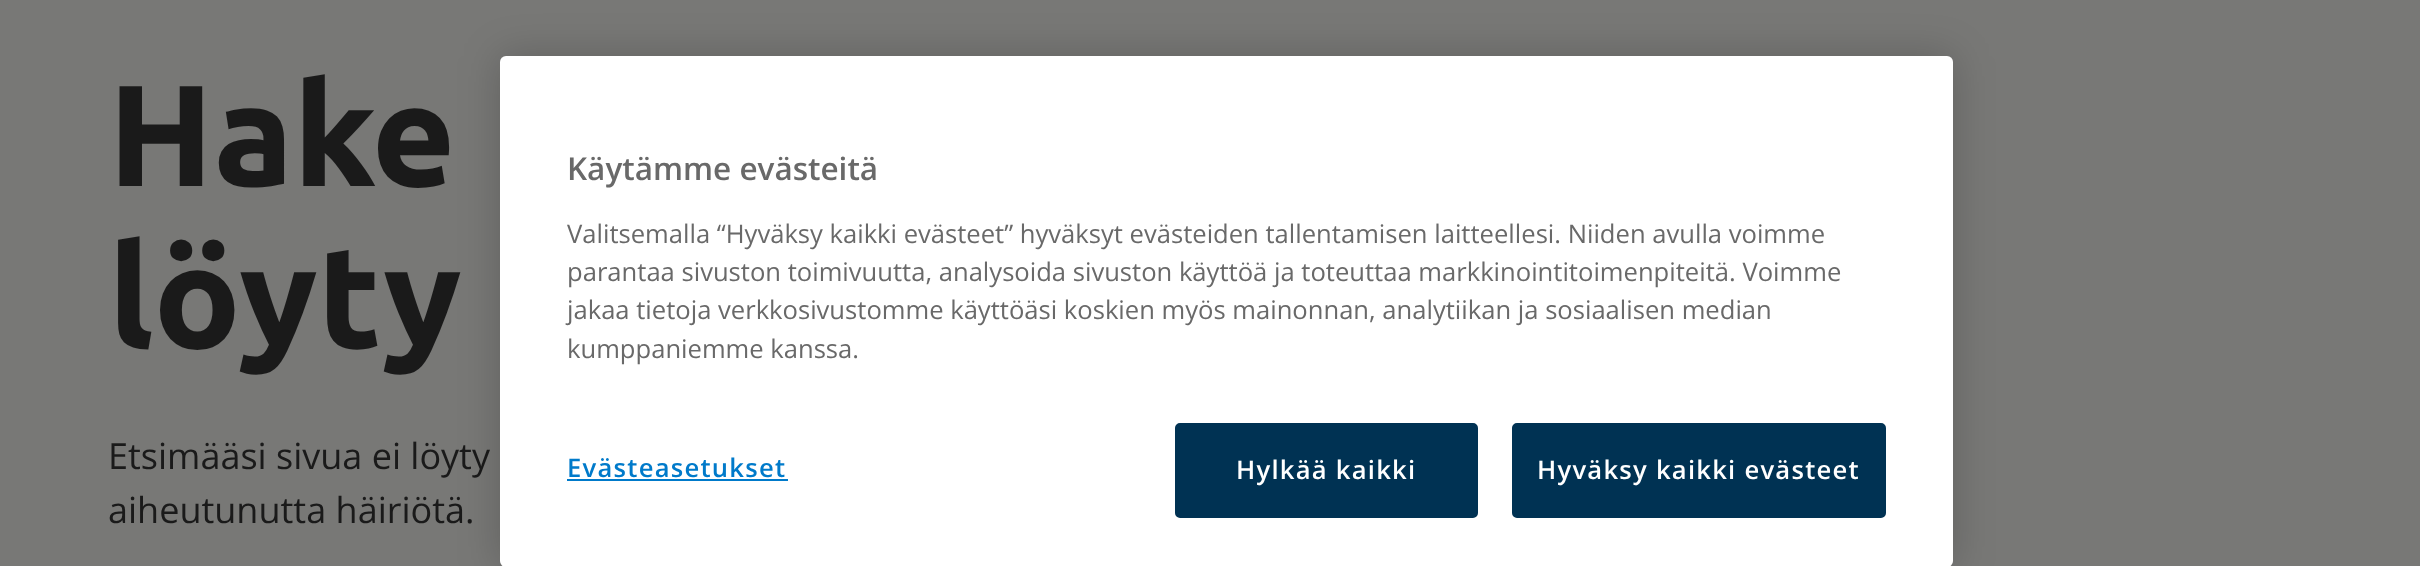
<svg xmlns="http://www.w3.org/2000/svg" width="2420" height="566">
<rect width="100%" height="100%" fill="#787876"/>
<text x="108" y="186" style="font-family:Ubuntu;font-size:144px;font-weight:bold;fill:#1a1a1a">Hake</text>
<text x="108" y="348" style="font-family:Ubuntu;font-size:144px;font-weight:bold;fill:#1a1a1a">löyty</text>
<text x="108" y="469" style="font-family:Open Sans;font-size:36px;fill:#1a1a1a">Etsimääsi sivua ei löyty</text>
<text x="108" y="523" style="font-family:Open Sans;font-size:36px;fill:#1a1a1a">aiheutunutta häiriötä.</text>
<rect x="500" y="56" width="1453" height="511" rx="6" fill="#00000033" filter="blur(20px)"/>
<rect x="500" y="56" width="1453" height="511" rx="6" fill="#fff"/>
<text x="567" y="180" style="font-family:Open Sans;font-size:31.5px;font-weight:600;fill:#696969">Käytämme evästeitä</text>
<text x="567" y="243" style="font-family:Open Sans;font-size:25.6px;fill:#696969">Valitsemalla “Hyväksy kaikki evästeet” hyväksyt evästeiden tallentamisen laitteellesi. Niiden avulla voimme</text>
<text x="567" y="281" style="font-family:Open Sans;font-size:25.6px;fill:#696969">parantaa sivuston toimivuutta, analysoida sivuston käyttöä ja toteuttaa markkinointitoimenpiteitä. Voimme</text>
<text x="567" y="319" style="font-family:Open Sans;font-size:25.6px;fill:#696969">jakaa tietoja verkkosivustomme käyttöäsi koskien myös mainonnan, analytiikan ja sosiaalisen median</text>
<text x="567" y="358" style="font-family:Open Sans;font-size:25.6px;fill:#696969">kumppaniemme kanssa.</text>
<text x="567" y="477" style="font-family:Open Sans;font-size:25.6px;font-weight:600;letter-spacing:1.25px;fill:#007aca">Evästeasetukset</text>
<rect x="567" y="479" width="221" height="2" fill="#007aca"/>
<rect x="1176" y="424" width="301" height="93" rx="4" fill="#003253" stroke="#003253" stroke-width="2"/>
<text x="1236" y="479" style="font-family:Open Sans;font-size:25.6px;font-weight:600;letter-spacing:1.25px;fill:#fff">Hylkää kaikki</text>
<rect x="1513" y="424" width="372" height="93" rx="4" fill="#003253" stroke="#003253" stroke-width="2"/>
<text x="1537" y="479" style="font-family:Open Sans;font-size:25.6px;font-weight:600;letter-spacing:1.25px;fill:#fff">Hyväksy kaikki evästeet</text>
</svg>
